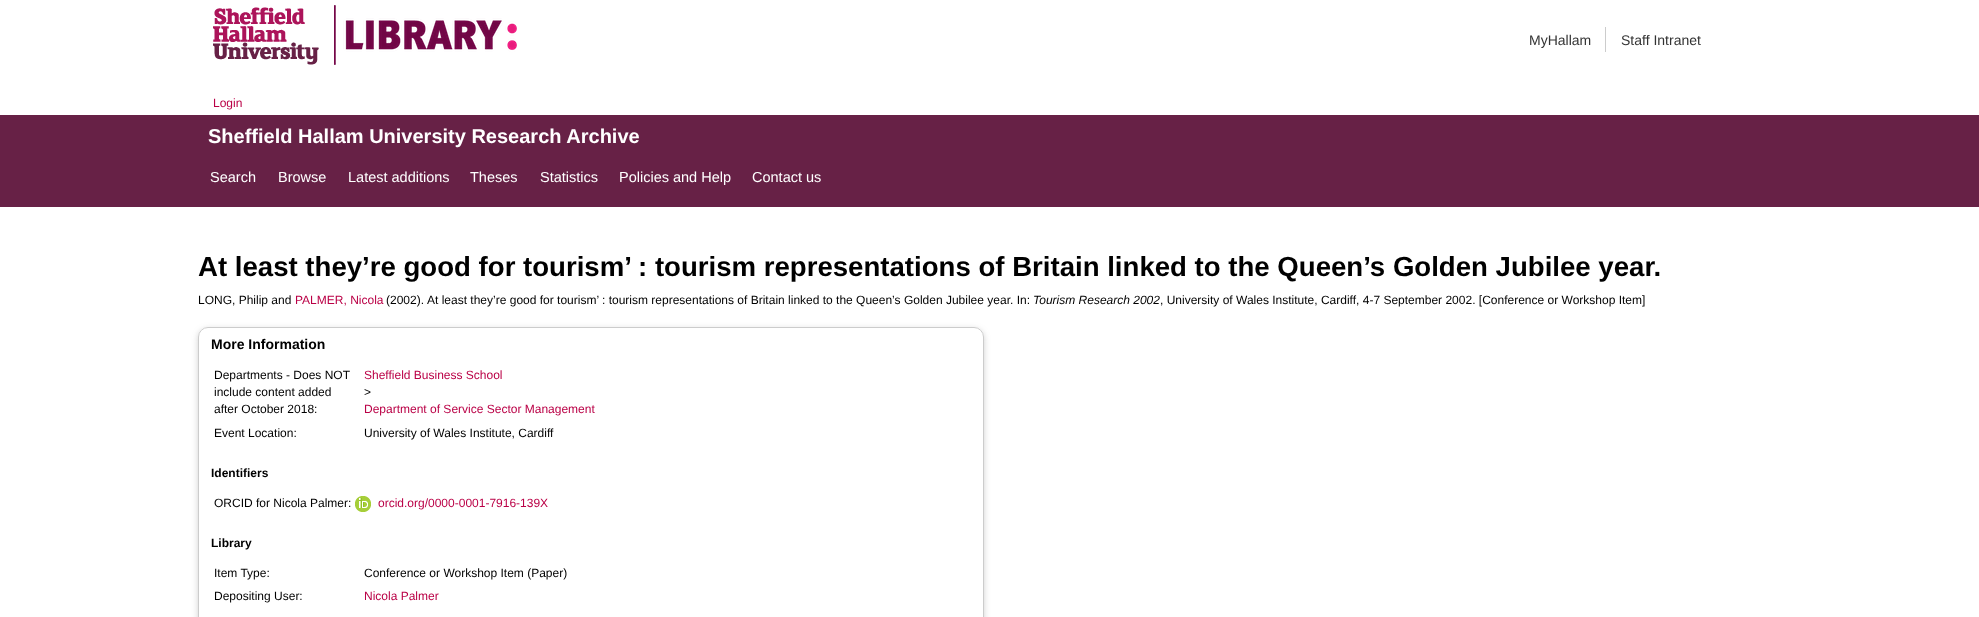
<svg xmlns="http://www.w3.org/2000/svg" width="1979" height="617">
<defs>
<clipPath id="clip1"><path d="M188 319h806v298h-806zm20 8h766c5.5 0 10 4.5 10 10v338c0 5.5-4.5 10-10 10h-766c-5.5 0-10-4.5-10-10v-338c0-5.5 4.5-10 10-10z" clip-rule="evenodd"/></clipPath>
</defs>
<rect width="100%" height="100%" fill="#fff"/>
<image x="213" y="7" width="106" height="58" href="media/1.png"/>
<image x="334" y="5" width="183" height="60" href="media/2.png"/>
<text x="1529" y="45" style="font-family:Liberation Sans;font-size:14px;fill:#333">MyHallam</text>
<rect x="1605" y="27" width="1" height="25" fill="#ccc"/>
<text x="1621" y="45" style="font-family:Liberation Sans;font-size:14px;fill:#333">Staff Intranet</text>
<text x="213" y="107" style="font-family:Liberation Sans;font-size:12px;fill:#ba0046">Login</text>
<rect y="115" width="1979" height="92" fill="#672146"/>
<text x="208" y="143" style="font-family:Liberation Sans;font-size:20px;font-weight:bold;fill:#fff">Sheffield Hallam University Research Archive</text>
<text x="210" y="182" style="font-family:Liberation Sans;font-size:14.5px;fill:#fff">Search</text>
<text x="278" y="182" style="font-family:Liberation Sans;font-size:14.5px;fill:#fff">Browse</text>
<text x="348" y="182" style="font-family:Liberation Sans;font-size:14.5px;fill:#fff">Latest additions</text>
<text x="470" y="182" style="font-family:Liberation Sans;font-size:14.5px;fill:#fff">Theses</text>
<text x="540" y="182" style="font-family:Liberation Sans;font-size:14.5px;fill:#fff">Statistics</text>
<text x="619" y="182" style="font-family:Liberation Sans;font-size:14.5px;fill:#fff">Policies and Help</text>
<text x="752" y="182" style="font-family:Liberation Sans;font-size:14.5px;fill:#fff">Contact us</text>
<text x="198" y="276" style="font-family:Liberation Sans;font-size:27.6px;font-weight:bold;fill:#000">At least they’re good for tourism’ : tourism representations of Britain linked to the Queen’s Golden Jubilee year.</text>
<text x="198" y="304" style="font-family:Liberation Sans;font-size:12px;fill:#000">LONG, Philip and</text>
<text x="295" y="304" style="font-family:Liberation Sans;font-size:12px;fill:#ba0046">PALMER, Nicola</text>
<text x="386" y="304" style="font-family:Liberation Sans;font-size:12px;fill:#000">(2002).</text>
<text x="427" y="304" style="font-family:Liberation Sans;font-size:12px;fill:#000">At least they’re good for tourism’ : tourism representations of Britain linked to the Queen’s Golden Jubilee year. In:</text>
<text x="1033" y="304" style="font-family:Liberation Sans;font-size:12px;font-style:italic;fill:#000">Tourism Research 2002</text>
<text x="1160" y="304" style="font-family:Liberation Sans;font-size:12px;fill:#000">, University of Wales Institute, Cardiff, 4-7 September 2002. [Conference or Workshop Item]</text>
<g clip-path="url(#clip1)">
<rect x="198" y="329" width="786" height="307" rx="10" fill="#6464644d" filter="blur(3px)"/>
</g>
<rect x="198.5" y="327.5" width="785" height="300" rx="9.5" fill="none" stroke="#ccc"/>
<text x="211" y="349" style="font-family:Liberation Sans;font-size:14px;font-weight:bold;fill:#000">More Information</text>
<text x="214" y="379" style="font-family:Liberation Sans;font-size:12px;fill:#000">Departments - Does NOT</text>
<text x="214" y="396" style="font-family:Liberation Sans;font-size:12px;fill:#000">include content added</text>
<text x="214" y="413" style="font-family:Liberation Sans;font-size:12px;fill:#000">after October 2018:</text>
<text x="364" y="379" style="font-family:Liberation Sans;font-size:12px;fill:#ba0046">Sheffield Business School</text>
<text x="364" y="396" style="font-family:Liberation Sans;font-size:12px;fill:#000">&gt;</text>
<text x="364" y="413" style="font-family:Liberation Sans;font-size:12px;fill:#ba0046">Department of Service Sector Management</text>
<text x="214" y="437" style="font-family:Liberation Sans;font-size:12px;fill:#000">Event Location:</text>
<text x="364" y="437" style="font-family:Liberation Sans;font-size:12px;fill:#000">University of Wales Institute, Cardiff</text>
<text x="211" y="477" style="font-family:Liberation Sans;font-size:12px;font-weight:bold;fill:#000">Identifiers</text>
<text x="214" y="507" style="font-family:Liberation Sans;font-size:12px;fill:#000">ORCID for Nicola Palmer:</text>
<image x="355" y="496" width="16" height="16" href="media/3.png"/>
<text x="378" y="507" style="font-family:Liberation Sans;font-size:12px;fill:#ba0046">orcid.org/0000-0001-7916-139X</text>
<text x="211" y="547" style="font-family:Liberation Sans;font-size:12px;font-weight:bold;fill:#000">Library</text>
<text x="214" y="577" style="font-family:Liberation Sans;font-size:12px;fill:#000">Item Type:</text>
<text x="364" y="577" style="font-family:Liberation Sans;font-size:12px;fill:#000">Conference or Workshop Item (Paper)</text>
<text x="214" y="600" style="font-family:Liberation Sans;font-size:12px;fill:#000">Depositing User:</text>
<text x="364" y="600" style="font-family:Liberation Sans;font-size:12px;fill:#ba0046">Nicola Palmer</text>
</svg>
